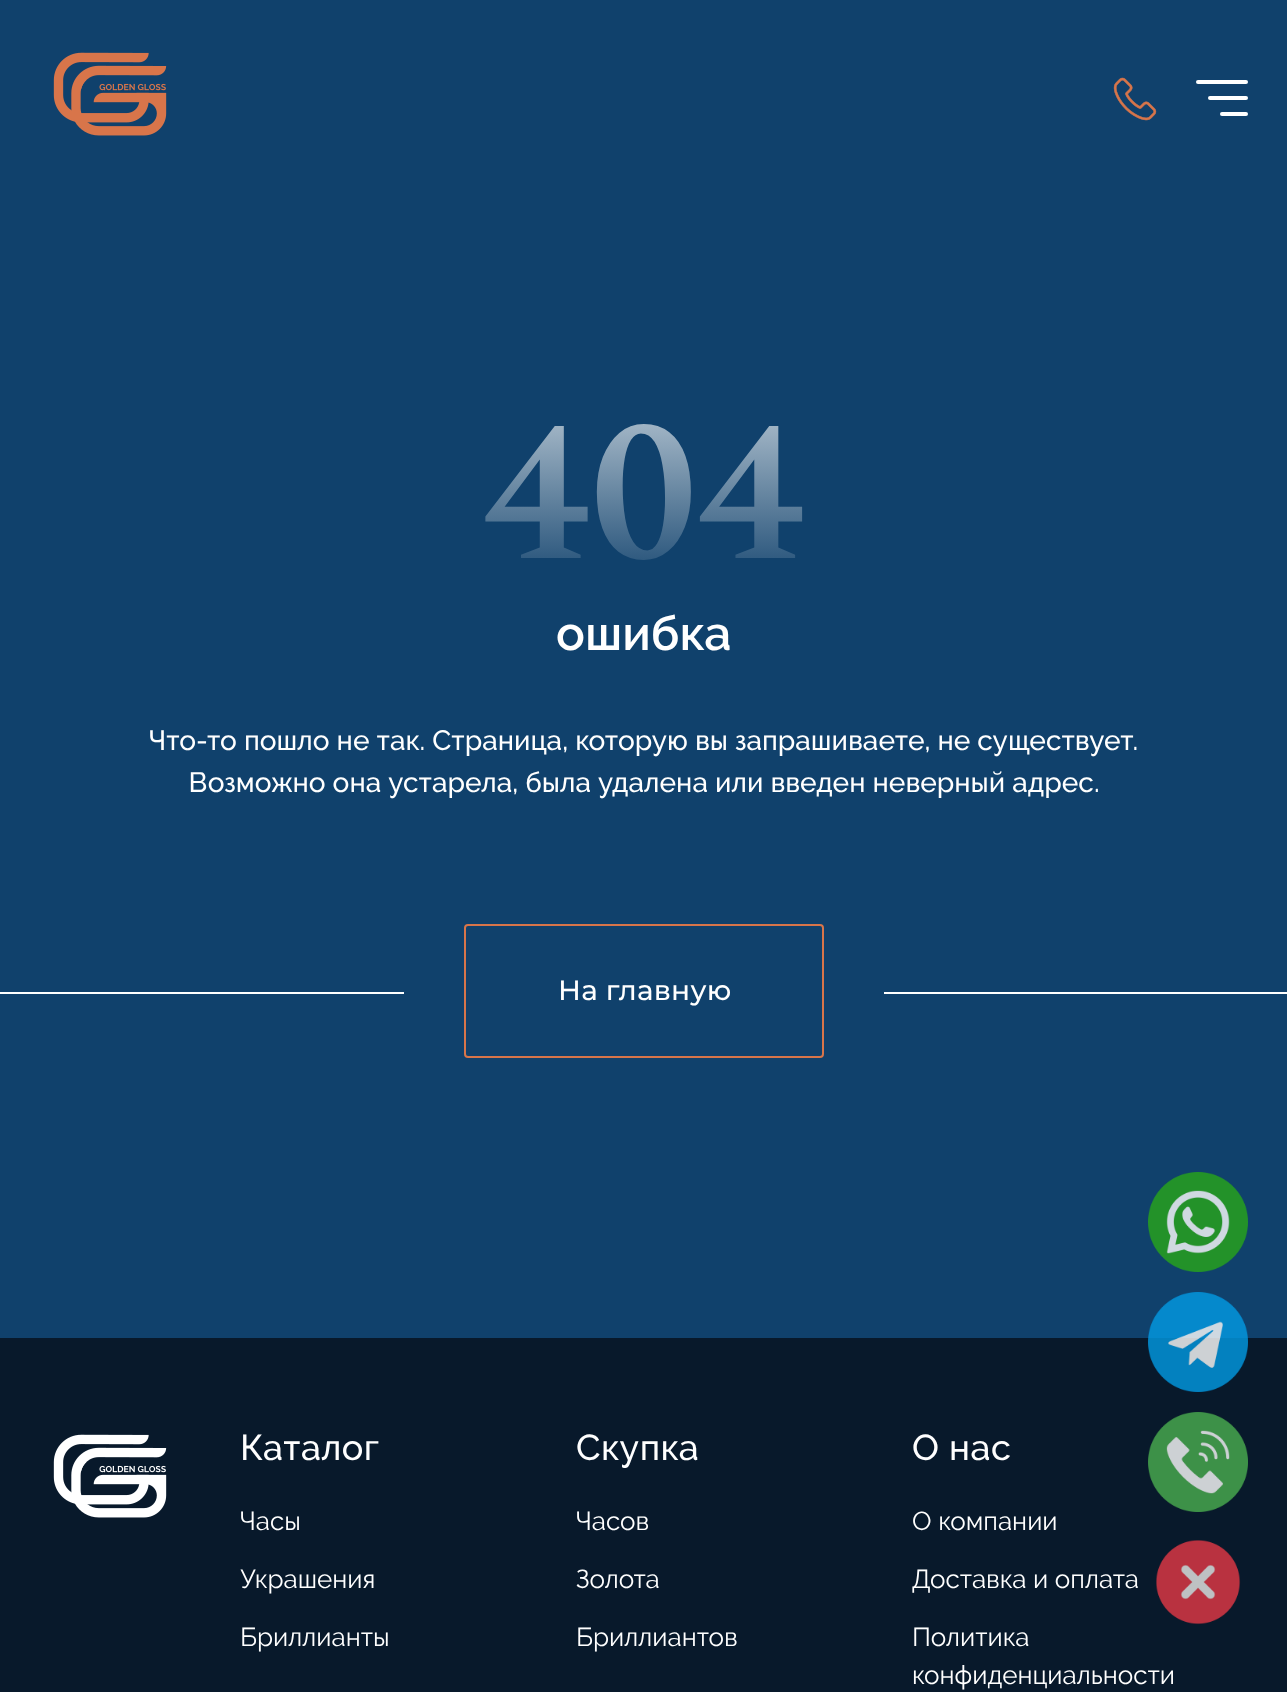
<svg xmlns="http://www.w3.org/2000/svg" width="1287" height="1692">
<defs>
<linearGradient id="g1" gradientUnits="userSpaceOnUse" x1="644" y1="382" x2="644" y2="598"><stop offset="0" stop-color="#c3d0da"/><stop offset="1" stop-color="#10416c"/></linearGradient>
</defs>
<rect width="100%" height="100%" fill="#10416c"/>
<image x="53" y="52" width="114" height="84" href="media/1.png"/>
<image x="1113" y="77" width="44" height="44" href="media/2.png"/>
<rect x="1196" y="80" width="52" height="4" rx="2" fill="#fff"/>
<rect x="1208" y="96" width="40" height="4" rx="2" fill="#fff"/>
<rect x="1220" y="112" width="28" height="4" rx="2" fill="#fff"/>
<text x="483" y="558" style="font-family:Spectral;font-size:200px;font-weight:600;fill:url(#g1)">404</text>
<text x="556" y="650" style="font-family:Raleway;font-size:48px;font-weight:600;fill:#fff">ошибка</text>
<text x="149" y="750" style="font-family:Raleway;font-size:28px;font-weight:500;fill:#fff">Что-то пошло не так. Страница, которую вы запрашиваете, не существует.</text>
<text x="189" y="792" style="font-family:Raleway;font-size:28px;font-weight:500;fill:#fff">Возможно она устарела, была удалена или введен неверный адрес.</text>
<rect y="992" width="404" height="2" fill="#fff"/>
<rect x="465" y="925" width="358" height="132" rx="3" fill="none" stroke="#d8754a" stroke-width="2"/>
<text x="558" y="1000" style="font-family:Montserrat;font-size:28px;font-weight:500;letter-spacing:0.25px;fill:#fff">На главную</text>
<rect x="884" y="992" width="403" height="2" fill="#fff"/>
<rect y="1338" width="1287" height="354" fill="#08192b"/>
<image x="53" y="1434" width="114" height="84" href="media/3.png"/>
<text x="240" y="1460" style="font-family:Raleway;font-size:36px;font-weight:500;letter-spacing:0.5px;fill:#fff">Каталог</text>
<text x="240" y="1530" style="font-family:Raleway;font-size:26px;fill:#fff">Часы</text>
<text x="240" y="1588" style="font-family:Raleway;font-size:26px;fill:#fff">Украшения</text>
<text x="240" y="1646" style="font-family:Raleway;font-size:26px;fill:#fff">Бриллианты</text>
<text x="576" y="1460" style="font-family:Raleway;font-size:36px;font-weight:500;letter-spacing:0.5px;fill:#fff">Скупка</text>
<text x="576" y="1530" style="font-family:Raleway;font-size:26px;fill:#fff">Часов</text>
<text x="576" y="1588" style="font-family:Raleway;font-size:26px;fill:#fff">Золота</text>
<text x="576" y="1646" style="font-family:Raleway;font-size:26px;fill:#fff">Бриллиантов</text>
<text x="912" y="1460" style="font-family:Raleway;font-size:36px;font-weight:500;letter-spacing:0.5px;fill:#fff">О нас</text>
<text x="912" y="1530" style="font-family:Raleway;font-size:26px;fill:#fff">О компании</text>
<text x="912" y="1588" style="font-family:Raleway;font-size:26px;fill:#fff">Доставка и оплата</text>
<text x="912" y="1646" style="font-family:Raleway;font-size:26px;fill:#fff">Политика</text>
<text x="912" y="1684" style="font-family:Raleway;font-size:26px;fill:#fff">конфиденциальности</text>
<image x="1148" y="1172" width="100" height="100" href="media/4.png"/>
<image x="1148" y="1292" width="100" height="100" href="media/5.png"/>
<image x="1148" y="1412" width="100" height="100" href="media/6.png"/>
<image x="1156" y="1540" width="85" height="85" href="media/7.png"/>
</svg>
